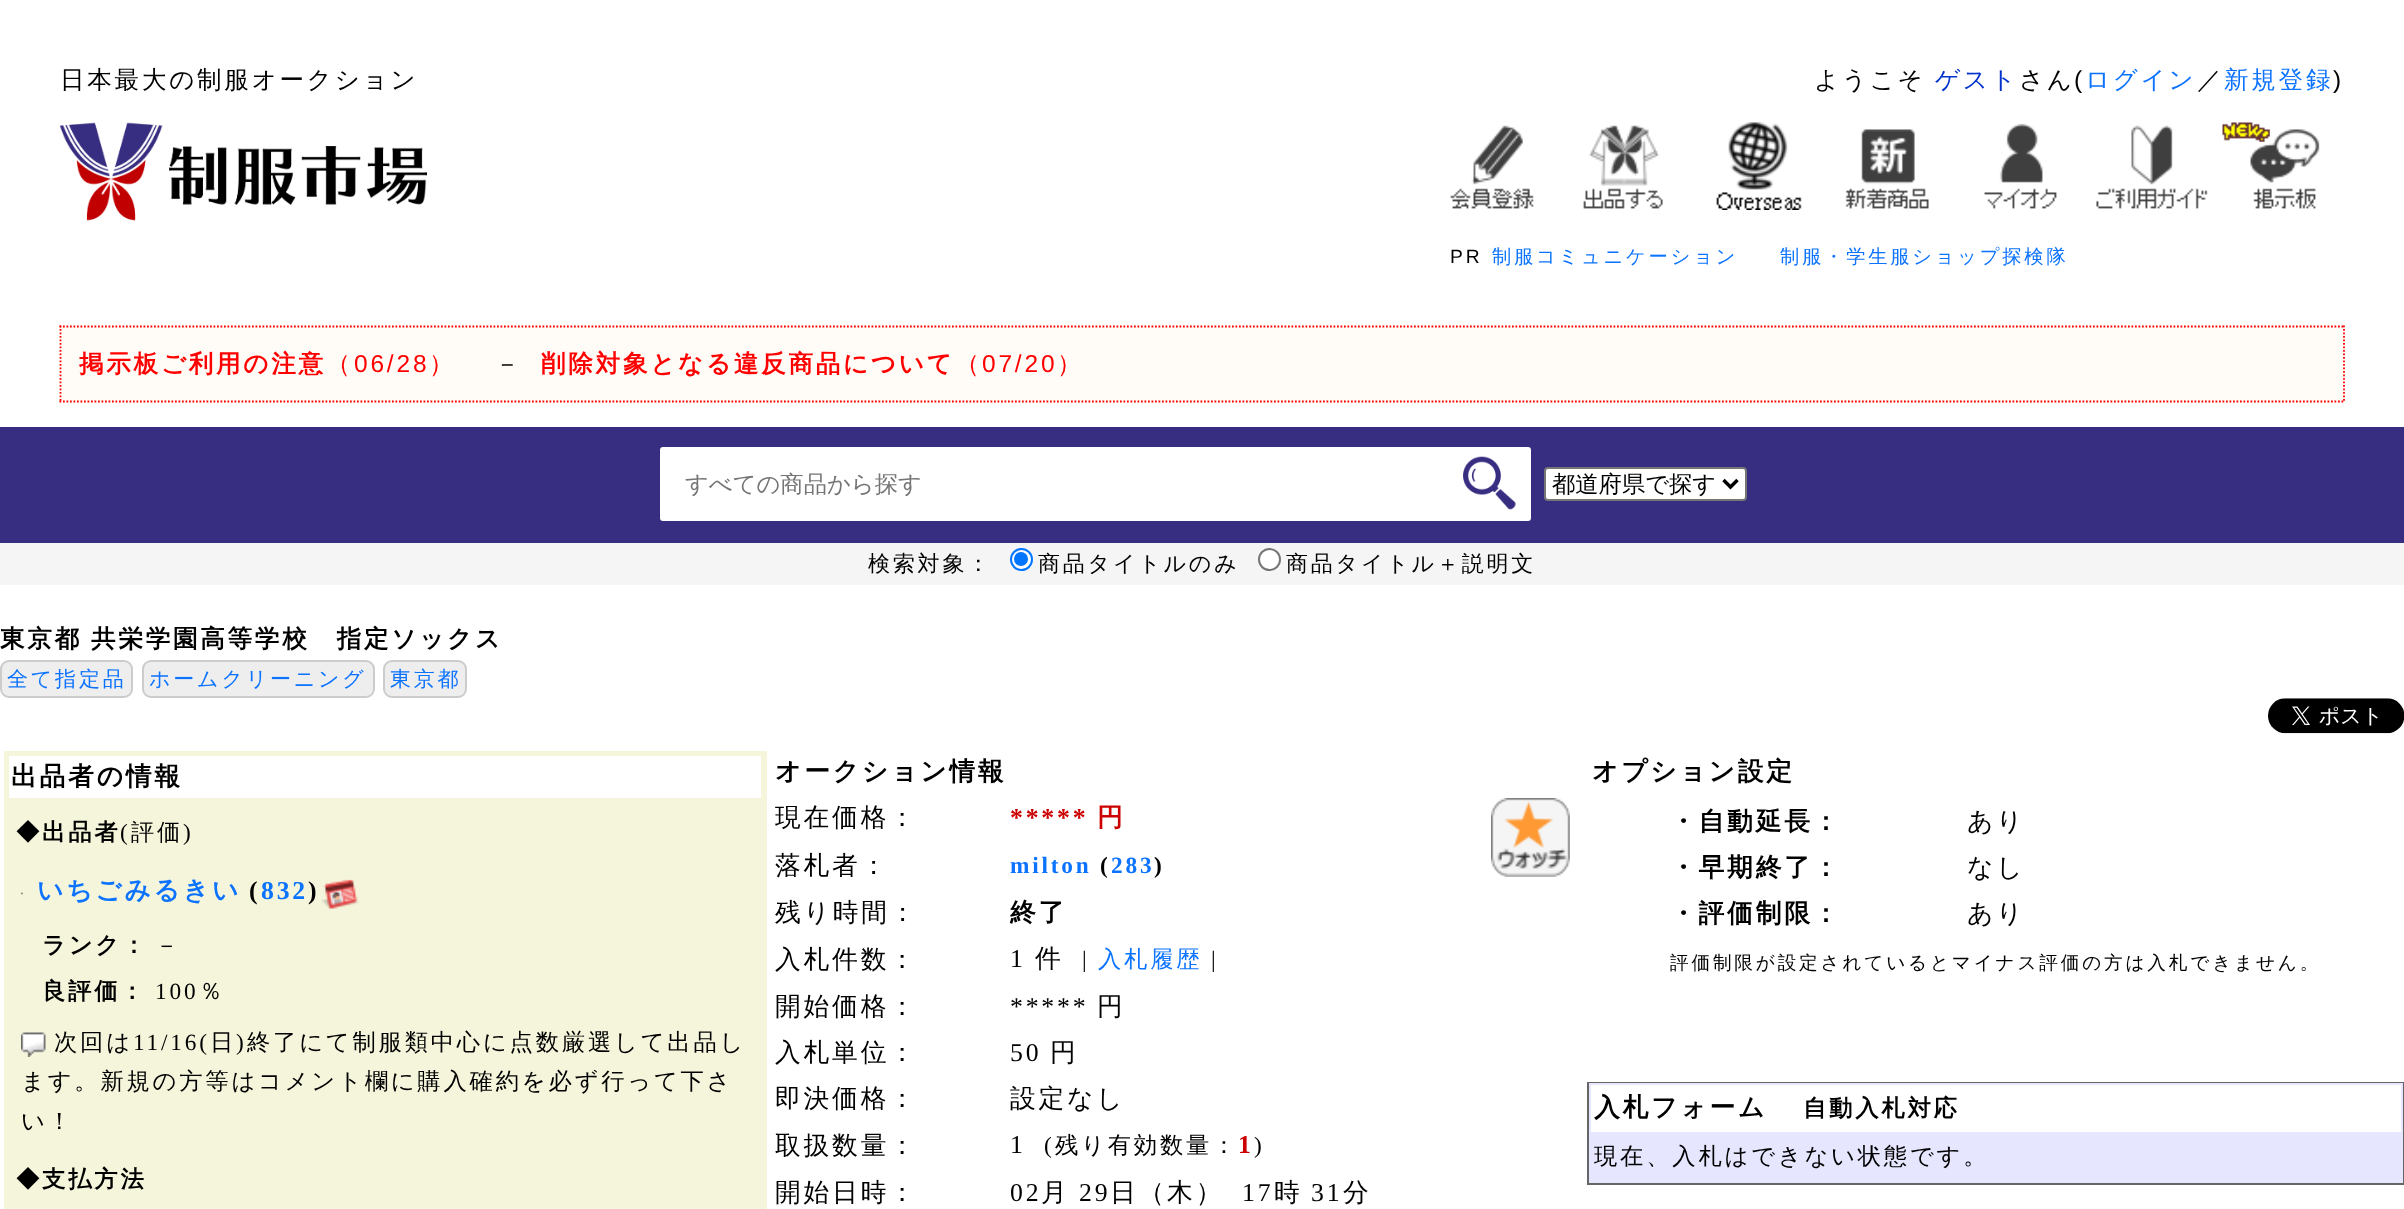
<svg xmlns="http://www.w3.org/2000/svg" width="2404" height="1209">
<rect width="100%" height="100%" fill="#fff"/>
<text x="60" y="88" style="font-family:WenQuanYi Zen Hei;font-size:24.5px;font-weight:500;letter-spacing:2.8px;fill:#000">日本最大の制服オークション</text>
<image x="59" y="122" width="368" height="99" href="media/1.png"/>
<text x="1814" y="88" style="font-family:WenQuanYi Zen Hei;font-size:24.5px;font-weight:500;letter-spacing:2.8px;fill:#000">ようこそ</text>
<text x="1935" y="88" style="font-family:WenQuanYi Zen Hei;font-size:24.5px;font-weight:500;letter-spacing:2.8px;fill:#03c">ゲスト</text>
<text x="2019" y="88" style="font-family:WenQuanYi Zen Hei;font-size:24.5px;font-weight:500;letter-spacing:2.8px;fill:#000">さん</text>
<text x="2074" y="88" style="font-family:Liberation Sans;font-size:24.5px;letter-spacing:2.8px;fill:#000">(</text>
<text x="2085" y="88" style="font-family:WenQuanYi Zen Hei;font-size:24.5px;font-weight:500;letter-spacing:2.8px;fill:#0c73ff">ログイン</text>
<text x="2197" y="88" style="font-family:WenQuanYi Zen Hei;font-size:24.5px;font-weight:500;letter-spacing:2.8px;fill:#000">／</text>
<text x="2224" y="88" style="font-family:WenQuanYi Zen Hei;font-size:24.5px;font-weight:500;letter-spacing:2.8px;fill:#0c73ff">新規登録</text>
<text x="2333" y="88" style="font-family:Liberation Sans;font-size:24.5px;letter-spacing:2.8px;fill:#000">)</text>
<image x="1450" y="125" width="84" height="84" href="media/2.png"/>
<image x="1583" y="125" width="80" height="84" href="media/3.png"/>
<image x="1716" y="122" width="86" height="88" href="media/4.png"/>
<image x="1845" y="129" width="84" height="80" href="media/5.png"/>
<image x="1984" y="123" width="73" height="86" href="media/6.png"/>
<image x="2096" y="125" width="112" height="84" href="media/7.png"/>
<image x="2250" y="129" width="70" height="80" href="media/9.png"/>
<image x="2222" y="122" width="48" height="20" href="media/8.png"/>
<text x="1450" y="263" style="font-family:Liberation Sans;font-size:19.25px;letter-spacing:2.8px;fill:#000">PR</text>
<text x="1492" y="263" style="font-family:WenQuanYi Zen Hei;font-size:19.25px;font-weight:500;letter-spacing:2.8px;fill:#0c73ff">制服コミュニケーション</text>
<text x="1780" y="263" style="font-family:WenQuanYi Zen Hei;font-size:19.25px;font-weight:500;letter-spacing:2.8px;fill:#0c73ff">制服・学生服ショップ探検隊</text>
<rect x="60" y="326" width="2285" height="77" fill="#fffcf7"/>
<path d="M59.5 326.5h2285.5" fill="none" stroke="#f00" stroke-width="1.8" stroke-dasharray="1.75 1.75"/>
<path d="M2344 325.5v77" fill="none" stroke="#f00" stroke-width="1.8" stroke-dasharray="1.75 1.75"/>
<path d="M59.5 401.5h2285.5" fill="none" stroke="#f00" stroke-width="1.8" stroke-dasharray="1.75 1.75"/>
<path d="M60.5 325.5v77" fill="none" stroke="#f00" stroke-width="1.8" stroke-dasharray="1.75 1.75"/>
<text x="79" y="372" style="font-family:WenQuanYi Zen Hei;font-size:24.5px;font-weight:bold;letter-spacing:2.8px;fill:#f00">掲示板ご利用の注意</text>
<text x="326" y="372" style="font-family:WenQuanYi Zen Hei;font-size:24.5px;font-weight:500;letter-spacing:2.8px;fill:#f00">（</text>
<text x="354" y="372" style="font-family:Liberation Sans;font-size:24.5px;letter-spacing:2.8px;fill:#f00">06/28</text>
<text x="429" y="372" style="font-family:WenQuanYi Zen Hei;font-size:24.5px;font-weight:500;letter-spacing:2.8px;fill:#f00">）</text>
<text x="495" y="372" style="font-family:WenQuanYi Zen Hei;font-size:24.5px;font-weight:500;letter-spacing:2.8px;fill:#000">－</text>
<text x="541" y="372" style="font-family:WenQuanYi Zen Hei;font-size:24.5px;font-weight:bold;letter-spacing:2.8px;fill:#f00">削除対象となる違反商品について</text>
<text x="955" y="372" style="font-family:WenQuanYi Zen Hei;font-size:24.5px;font-weight:500;letter-spacing:2.8px;fill:#f00">（</text>
<text x="982" y="372" style="font-family:Liberation Sans;font-size:24.5px;letter-spacing:2.8px;fill:#f00">07/20</text>
<text x="1057" y="372" style="font-family:WenQuanYi Zen Hei;font-size:24.5px;font-weight:500;letter-spacing:2.8px;fill:#f00">）</text>
<rect y="427" width="2404" height="116" fill="#382e81"/>
<rect x="659" y="446" width="873" height="76" rx="4" fill="#fff" stroke="#382e81" stroke-width="2"/>
<text x="685" y="492" style="font-family:WenQuanYi Zen Hei;font-size:23.3px;font-weight:500;fill:#757575">すべての商品から探す</text>
<image x="1463" y="456" width="53" height="54" href="media/10.png"/>
<rect x="1545" y="468" width="201" height="32" rx="3" fill="#fff" stroke="#767676" stroke-width="2"/>
<path d="M1723.5 480l7 7l7-7" fill="none" stroke="#000" stroke-width="3.5"/>
<text x="1552" y="492" style="font-family:WenQuanYi Zen Hei;font-size:23.3px;font-weight:500;fill:#000">都道府県で探す</text>
<rect y="543" width="2404" height="42" fill="#f5f5f5"/>
<text x="868" y="571" style="font-family:WenQuanYi Zen Hei;font-size:22px;font-weight:500;letter-spacing:2.8px;fill:#000">検索対象：</text>
<circle cx="1021.5" cy="559.5" r="10.5" fill="#fff" stroke="#0075ff" stroke-width="2"/>
<circle cx="1021" cy="559" r="7" fill="#0075ff"/>
<text x="1038" y="571" style="font-family:WenQuanYi Zen Hei;font-size:22px;font-weight:500;letter-spacing:2.8px;fill:#000">商品タイトルのみ</text>
<circle cx="1269.5" cy="559.5" r="10.5" fill="#fff" stroke="#767676" stroke-width="2"/>
<text x="1286" y="571" style="font-family:WenQuanYi Zen Hei;font-size:22px;font-weight:500;letter-spacing:2.8px;fill:#000">商品タイトル＋説明文</text>
<text x="0" y="647" word-spacing="-1" style="font-family:WenQuanYi Zen Hei;font-size:24.5px;font-weight:bold;letter-spacing:2.8px;fill:#000">東京都 共栄学園高等学校　指定ソックス</text>
<rect x="1" y="661" width="131" height="36" rx="8" fill="#eee" stroke="#ccc" stroke-width="2"/>
<text x="7" y="686" style="font-family:WenQuanYi Zen Hei;font-size:21px;font-weight:500;letter-spacing:2.8px;fill:#0c73ff">全て指定品</text>
<rect x="143" y="661" width="231" height="36" rx="8" fill="#eee" stroke="#ccc" stroke-width="2"/>
<text x="149" y="686" style="font-family:WenQuanYi Zen Hei;font-size:21px;font-weight:500;letter-spacing:2.8px;fill:#0c73ff">ホームクリーニング</text>
<rect x="384" y="661" width="82" height="36" rx="8" fill="#eee" stroke="#ccc" stroke-width="2"/>
<text x="390" y="686" style="font-family:WenQuanYi Zen Hei;font-size:21px;font-weight:500;letter-spacing:2.8px;fill:#0c73ff">東京都</text>
<image x="2268" y="698" width="136" height="36" href="media/11.png"/>
<rect x="4" y="751" width="763" height="458" fill="#f5f5dc"/>
<rect x="9" y="756" width="752" height="42" fill="#fff"/>
<text x="11" y="785" style="font-family:WenQuanYi Zen Hei;font-size:25.75px;font-weight:bold;letter-spacing:2.8px;fill:#000">出品者の情報</text>
<text x="16" y="840" style="font-family:WenQuanYi Zen Hei;font-size:23.3px;font-weight:bold;letter-spacing:2.8px;fill:#000">◆出品者</text>
<text x="120" y="840" style="font-family:Liberation Serif;font-size:23.3px;letter-spacing:2.8px;fill:#000">(</text>
<text x="131" y="840" style="font-family:WenQuanYi Zen Hei;font-size:23.3px;font-weight:500;letter-spacing:2.8px;fill:#000">評価</text>
<text x="183" y="840" style="font-family:Liberation Serif;font-size:23.3px;letter-spacing:2.8px;fill:#000">)</text>
<image x="21" y="892" width="2" height="3" href="media/12.png"/>
<text x="37" y="899" style="font-family:WenQuanYi Zen Hei;font-size:25.75px;font-weight:bold;letter-spacing:2.8px;fill:#0c73ff">いちごみるきい</text>
<text x="249" y="899" style="font-family:Liberation Serif;font-size:25.75px;font-weight:bold;letter-spacing:2.8px;fill:#000">(</text>
<text x="261" y="899" style="font-family:Liberation Serif;font-size:25.75px;font-weight:bold;letter-spacing:2.8px;fill:#0c73ff">832</text>
<text x="308" y="899" style="font-family:Liberation Serif;font-size:25.75px;font-weight:bold;letter-spacing:2.8px;fill:#000">)</text>
<image x="321" y="879" width="38" height="31" href="media/13.png"/>
<text x="42" y="953" style="font-family:WenQuanYi Zen Hei;font-size:23.3px;font-weight:bold;letter-spacing:2.8px;fill:#000">ランク：</text>
<text x="155" y="953" style="font-family:WenQuanYi Zen Hei;font-size:23.3px;font-weight:500;letter-spacing:2.8px;fill:#000">－</text>
<text x="42" y="999" style="font-family:WenQuanYi Zen Hei;font-size:23.3px;font-weight:bold;letter-spacing:2.8px;fill:#000">良評価：</text>
<text x="155" y="999" style="font-family:Liberation Serif;font-size:23.3px;letter-spacing:2.8px;fill:#000">100</text>
<text x="199" y="999" style="font-family:WenQuanYi Zen Hei;font-size:23.3px;font-weight:500;letter-spacing:2.8px;fill:#000">％</text>
<image x="21" y="1032" width="25" height="25" href="media/14.png"/>
<text x="54" y="1050" style="font-family:WenQuanYi Zen Hei;font-size:23.3px;font-weight:500;letter-spacing:2.8px;fill:#000">次回は</text>
<text x="133" y="1050" style="font-family:Liberation Serif;font-size:23.3px;letter-spacing:2.8px;fill:#000">11/16(</text>
<text x="210" y="1050" style="font-family:WenQuanYi Zen Hei;font-size:23.3px;font-weight:500;letter-spacing:2.8px;fill:#000">日</text>
<text x="236" y="1050" style="font-family:Liberation Serif;font-size:23.3px;letter-spacing:2.8px;fill:#000">)</text>
<text x="247" y="1050" style="font-family:WenQuanYi Zen Hei;font-size:23.3px;font-weight:500;letter-spacing:2.8px;fill:#000">終了にて制服類中心に点数厳選して出品し</text>
<text x="21" y="1089" style="font-family:WenQuanYi Zen Hei;font-size:23.3px;font-weight:500;letter-spacing:2.8px;fill:#000">ます。新規の方等はコメント欄に購入確約を必ず行って下さ</text>
<text x="21" y="1129" style="font-family:WenQuanYi Zen Hei;font-size:23.3px;font-weight:500;letter-spacing:2.8px;fill:#000">い！</text>
<text x="16" y="1187" style="font-family:WenQuanYi Zen Hei;font-size:23.3px;font-weight:bold;letter-spacing:2.8px;fill:#000">◆支払方法</text>
<text x="775" y="780" style="font-family:WenQuanYi Zen Hei;font-size:25.75px;font-weight:bold;letter-spacing:2.8px;fill:#000">オークション情報</text>
<text x="775" y="826" style="font-family:WenQuanYi Zen Hei;font-size:25.75px;font-weight:500;letter-spacing:2.8px;fill:#000">現在価格：</text>
<text x="1010" y="826" style="font-family:Liberation Serif;font-size:25.75px;font-weight:bold;letter-spacing:2.8px;fill:#c00">*****</text>
<text x="1097" y="826" style="font-family:WenQuanYi Zen Hei;font-size:25.75px;font-weight:bold;letter-spacing:2.8px;fill:#c00">円</text>
<image x="1491" y="798" width="79" height="79" href="media/15.png"/>
<text x="775" y="874" style="font-family:WenQuanYi Zen Hei;font-size:25.75px;font-weight:500;letter-spacing:2.8px;fill:#000">落札者：</text>
<text x="1010" y="873" style="font-family:Liberation Serif;font-size:23.3px;font-weight:bold;letter-spacing:2.8px;fill:#0c73ff">milton</text>
<text x="1100" y="873" style="font-family:Liberation Serif;font-size:23.3px;font-weight:bold;letter-spacing:2.8px;fill:#000">(</text>
<text x="1111" y="873" style="font-family:Liberation Serif;font-size:23.3px;font-weight:bold;letter-spacing:2.8px;fill:#0c73ff">283</text>
<text x="1154" y="873" style="font-family:Liberation Serif;font-size:23.3px;font-weight:bold;letter-spacing:2.8px;fill:#000">)</text>
<text x="775" y="921" style="font-family:WenQuanYi Zen Hei;font-size:25.75px;font-weight:500;letter-spacing:2.8px;fill:#000">残り時間：</text>
<text x="1010" y="921" style="font-family:WenQuanYi Zen Hei;font-size:25.75px;font-weight:bold;letter-spacing:2.8px;fill:#000">終了</text>
<text x="775" y="968" style="font-family:WenQuanYi Zen Hei;font-size:25.75px;font-weight:500;letter-spacing:2.8px;fill:#000">入札件数：</text>
<text x="1010" y="967" style="font-family:Liberation Serif;font-size:25.75px;letter-spacing:2.8px;fill:#000">1</text>
<text x="1035" y="967" style="font-family:WenQuanYi Zen Hei;font-size:25.75px;font-weight:500;letter-spacing:2.8px;fill:#000">件</text>
<text x="1082" y="967" style="font-family:Liberation Serif;font-size:23.3px;letter-spacing:2.8px;fill:#000">|</text>
<text x="1098" y="967" style="font-family:WenQuanYi Zen Hei;font-size:23.3px;font-weight:500;letter-spacing:2.8px;fill:#0c73ff">入札履歴</text>
<text x="1211" y="967" style="font-family:Liberation Serif;font-size:23.3px;letter-spacing:2.8px;fill:#000">|</text>
<text x="775" y="1015" style="font-family:WenQuanYi Zen Hei;font-size:25.75px;font-weight:500;letter-spacing:2.8px;fill:#000">開始価格：</text>
<text x="1010" y="1015" style="font-family:Liberation Serif;font-size:25.75px;letter-spacing:2.8px;fill:#000">*****</text>
<text x="1097" y="1015" style="font-family:WenQuanYi Zen Hei;font-size:25.75px;font-weight:500;letter-spacing:2.8px;fill:#000">円</text>
<text x="775" y="1061" style="font-family:WenQuanYi Zen Hei;font-size:25.75px;font-weight:500;letter-spacing:2.8px;fill:#000">入札単位：</text>
<text x="1010" y="1061" style="font-family:Liberation Serif;font-size:25.75px;letter-spacing:2.8px;fill:#000">50</text>
<text x="1050" y="1061" style="font-family:WenQuanYi Zen Hei;font-size:25.75px;font-weight:500;letter-spacing:2.8px;fill:#000">円</text>
<text x="775" y="1107" style="font-family:WenQuanYi Zen Hei;font-size:25.75px;font-weight:500;letter-spacing:2.8px;fill:#000">即決価格：</text>
<text x="1010" y="1107" style="font-family:WenQuanYi Zen Hei;font-size:25.75px;font-weight:500;letter-spacing:2.8px;fill:#000">設定なし</text>
<text x="775" y="1154" style="font-family:WenQuanYi Zen Hei;font-size:25.75px;font-weight:500;letter-spacing:2.8px;fill:#000">取扱数量：</text>
<text x="1010" y="1153" style="font-family:Liberation Serif;font-size:25.75px;letter-spacing:2.8px;fill:#000">1</text>
<text x="1044" y="1153" style="font-family:Liberation Serif;font-size:23.3px;letter-spacing:2.8px;fill:#000">(</text>
<text x="1055" y="1153" style="font-family:WenQuanYi Zen Hei;font-size:23.3px;font-weight:500;letter-spacing:2.8px;fill:#000">残り有効数量：</text>
<text x="1238" y="1153" style="font-family:Liberation Serif;font-size:25.75px;font-weight:bold;letter-spacing:2.8px;fill:#c00">1</text>
<text x="1254" y="1153" style="font-family:Liberation Serif;font-size:23.3px;letter-spacing:2.8px;fill:#000">)</text>
<text x="775" y="1201" style="font-family:WenQuanYi Zen Hei;font-size:25.75px;font-weight:500;letter-spacing:2.8px;fill:#000">開始日時：</text>
<text x="1010" y="1201" style="font-family:Liberation Serif;font-size:25.75px;letter-spacing:2.8px;fill:#000">02</text>
<text x="1041" y="1201" style="font-family:WenQuanYi Zen Hei;font-size:25.75px;font-weight:500;letter-spacing:2.8px;fill:#000">月</text>
<text x="1079" y="1201" style="font-family:Liberation Serif;font-size:25.75px;letter-spacing:2.8px;fill:#000">29</text>
<text x="1110" y="1201" style="font-family:WenQuanYi Zen Hei;font-size:25.75px;font-weight:500;letter-spacing:2.8px;fill:#000">日（木）</text>
<text x="1242" y="1201" style="font-family:Liberation Serif;font-size:25.75px;letter-spacing:2.8px;fill:#000">17</text>
<text x="1274" y="1201" style="font-family:WenQuanYi Zen Hei;font-size:25.75px;font-weight:500;letter-spacing:2.8px;fill:#000">時</text>
<text x="1311" y="1201" style="font-family:Liberation Serif;font-size:25.75px;letter-spacing:2.8px;fill:#000">31</text>
<text x="1343" y="1201" style="font-family:WenQuanYi Zen Hei;font-size:25.75px;font-weight:500;letter-spacing:2.8px;fill:#000">分</text>
<text x="1592" y="780" style="font-family:WenQuanYi Zen Hei;font-size:25.75px;font-weight:bold;letter-spacing:2.8px;fill:#000">オプション設定</text>
<text x="1670" y="830" style="font-family:WenQuanYi Zen Hei;font-size:25.75px;font-weight:bold;letter-spacing:2.8px;fill:#000">・自動延長：</text>
<text x="1967" y="830" style="font-family:WenQuanYi Zen Hei;font-size:25.75px;font-weight:500;letter-spacing:2.8px;fill:#000">あり</text>
<text x="1670" y="876" style="font-family:WenQuanYi Zen Hei;font-size:25.75px;font-weight:bold;letter-spacing:2.8px;fill:#000">・早期終了：</text>
<text x="1967" y="876" style="font-family:WenQuanYi Zen Hei;font-size:25.75px;font-weight:500;letter-spacing:2.8px;fill:#000">なし</text>
<text x="1670" y="922" style="font-family:WenQuanYi Zen Hei;font-size:25.75px;font-weight:bold;letter-spacing:2.8px;fill:#000">・評価制限：</text>
<text x="1967" y="922" style="font-family:WenQuanYi Zen Hei;font-size:25.75px;font-weight:500;letter-spacing:2.8px;fill:#000">あり</text>
<text x="1670" y="969" style="font-family:WenQuanYi Zen Hei;font-size:18.65px;font-weight:500;letter-spacing:2.8px;fill:#000">評価制限が設定されているとマイナス評価の方は入札できません。</text>
<rect x="1587" y="1082" width="817" height="103" fill="#666"/>
<rect x="1589" y="1083" width="814" height="100" fill="#e6e6ff"/>
<rect x="1591" y="1085" width="810" height="47" fill="#fff"/>
<text x="1594" y="1116" style="font-family:WenQuanYi Zen Hei;font-size:25.75px;font-weight:bold;letter-spacing:2.8px;fill:#000">入札フォーム</text>
<text x="1803" y="1116" style="font-family:WenQuanYi Zen Hei;font-size:23.3px;font-weight:bold;letter-spacing:2.8px;fill:#000">自動入札対応</text>
<text x="1594" y="1164" style="font-family:WenQuanYi Zen Hei;font-size:23.3px;font-weight:500;letter-spacing:2.8px;fill:#000">現在、入札はできない状態です。</text>
</svg>
